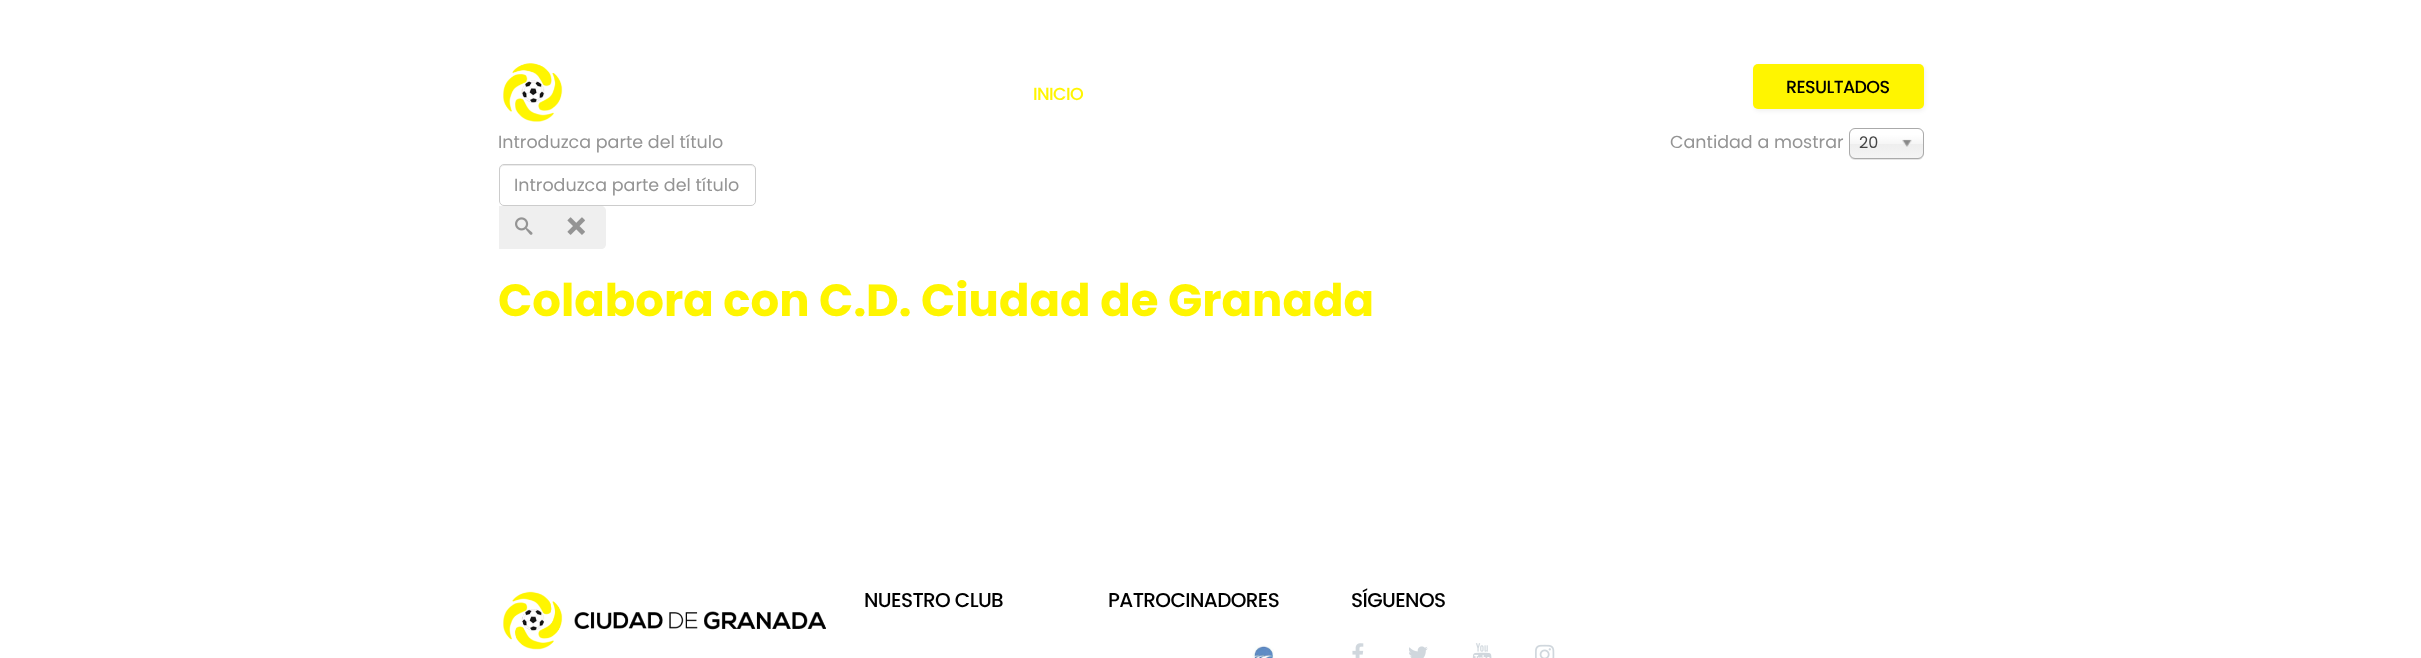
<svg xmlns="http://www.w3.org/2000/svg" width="2421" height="658">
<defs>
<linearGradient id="g1" gradientUnits="userSpaceOnUse" x1="1886" y1="129" x2="1886" y2="158"><stop offset="0.2" stop-color="#fff"/><stop offset="0.5" stop-color="#f6f6f6"/><stop offset="0.52" stop-color="#eee"/><stop offset="1" stop-color="#f4f4f4"/></linearGradient>
</defs>
<rect width="100%" height="100%" fill="#fff"/>
<image x="503" y="63" width="60" height="59" href="media/1.png"/>
<text x="1033" y="100" style="font-family:Poppins;font-size:17.5px;font-weight:500;letter-spacing:-0.6px;fill:#fff500">INICIO</text>
<rect x="1754" y="66" width="171" height="45" rx="5" fill="#0000000f" filter="blur(2px)"/>
<rect x="1753" y="64" width="171" height="45" rx="5" fill="#fff500"/>
<text x="1786" y="93" style="font-family:Poppins;font-size:17.5px;font-weight:500;letter-spacing:-0.6px;fill:#000">RESULTADOS</text>
<text x="498" y="148" style="font-family:Poppins;font-size:17.5px;fill:#949494">Introduzca parte del título</text>
<path d="M504 166h247c2 0 4 2 4 4v-1c0-2-2-4-4-4h-247c-2 0-4 2-4 4v1c0-2 2-4 4-4z" fill="#ececec"/>
<rect x="499.5" y="164.5" width="256" height="41" rx="4.5" fill="none" stroke="#ccc"/>
<text x="514" y="191" style="font-family:Poppins;font-size:17.5px;fill:#949494">Introduzca parte del título</text>
<rect x="499" y="206" width="52" height="43" fill="#efefef"/>
<image x="515" y="217" width="18" height="18" href="media/2.png"/>
<path d="M551 206h50c3 0 5 2 5 5v33c0 3-2 5-5 5h-50z" fill="#efefef"/>
<image x="567" y="217" width="18" height="18" href="media/3.png"/>
<text x="1670" y="148" style="font-family:Poppins;font-size:17.5px;fill:#949494">Cantidad a mostrar</text>
<rect x="1849" y="129" width="75" height="31" rx="6" fill="#0000001a" filter="blur(0.5px)"/>
<rect x="1850" y="129" width="73" height="29" rx="5" fill="url(#g1)"/>
<rect x="1849.5" y="128.5" width="74" height="30" rx="5.5" fill="none" stroke="#aaa"/>
<text x="1859" y="148" style="font-family:Poppins;font-size:16px;fill:#444">20</text>
<image x="1902" y="139" width="10" height="8" href="media/4.png"/>
<text x="498" y="316" style="font-family:Poppins;font-size:45px;font-weight:bold;fill:#fff500">Colabora con C.D. Ciudad de Granada</text>
<image x="503" y="591" width="323" height="59" href="media/5.png"/>
<text x="864" y="607" style="font-family:Poppins;font-size:20px;font-weight:500;letter-spacing:-0.6px;fill:#000">NUESTRO CLUB</text>
<text x="1108" y="607" style="font-family:Poppins;font-size:20px;font-weight:500;letter-spacing:-0.6px;fill:#000">PATROCINADORES</text>
<image x="1252" y="645" width="22" height="13" href="media/6.png"/>
<text x="1351" y="607" style="font-family:Poppins;font-size:20px;font-weight:500;letter-spacing:-0.6px;fill:#000">SÍGUENOS</text>
<image x="1352" y="643" width="12" height="15" href="media/7.png"/>
<image x="1409" y="646" width="19" height="12" href="media/8.png"/>
<image x="1472" y="643" width="20" height="15" href="media/9.png"/>
<image x="1535" y="644" width="20" height="14" href="media/10.png"/>
</svg>
